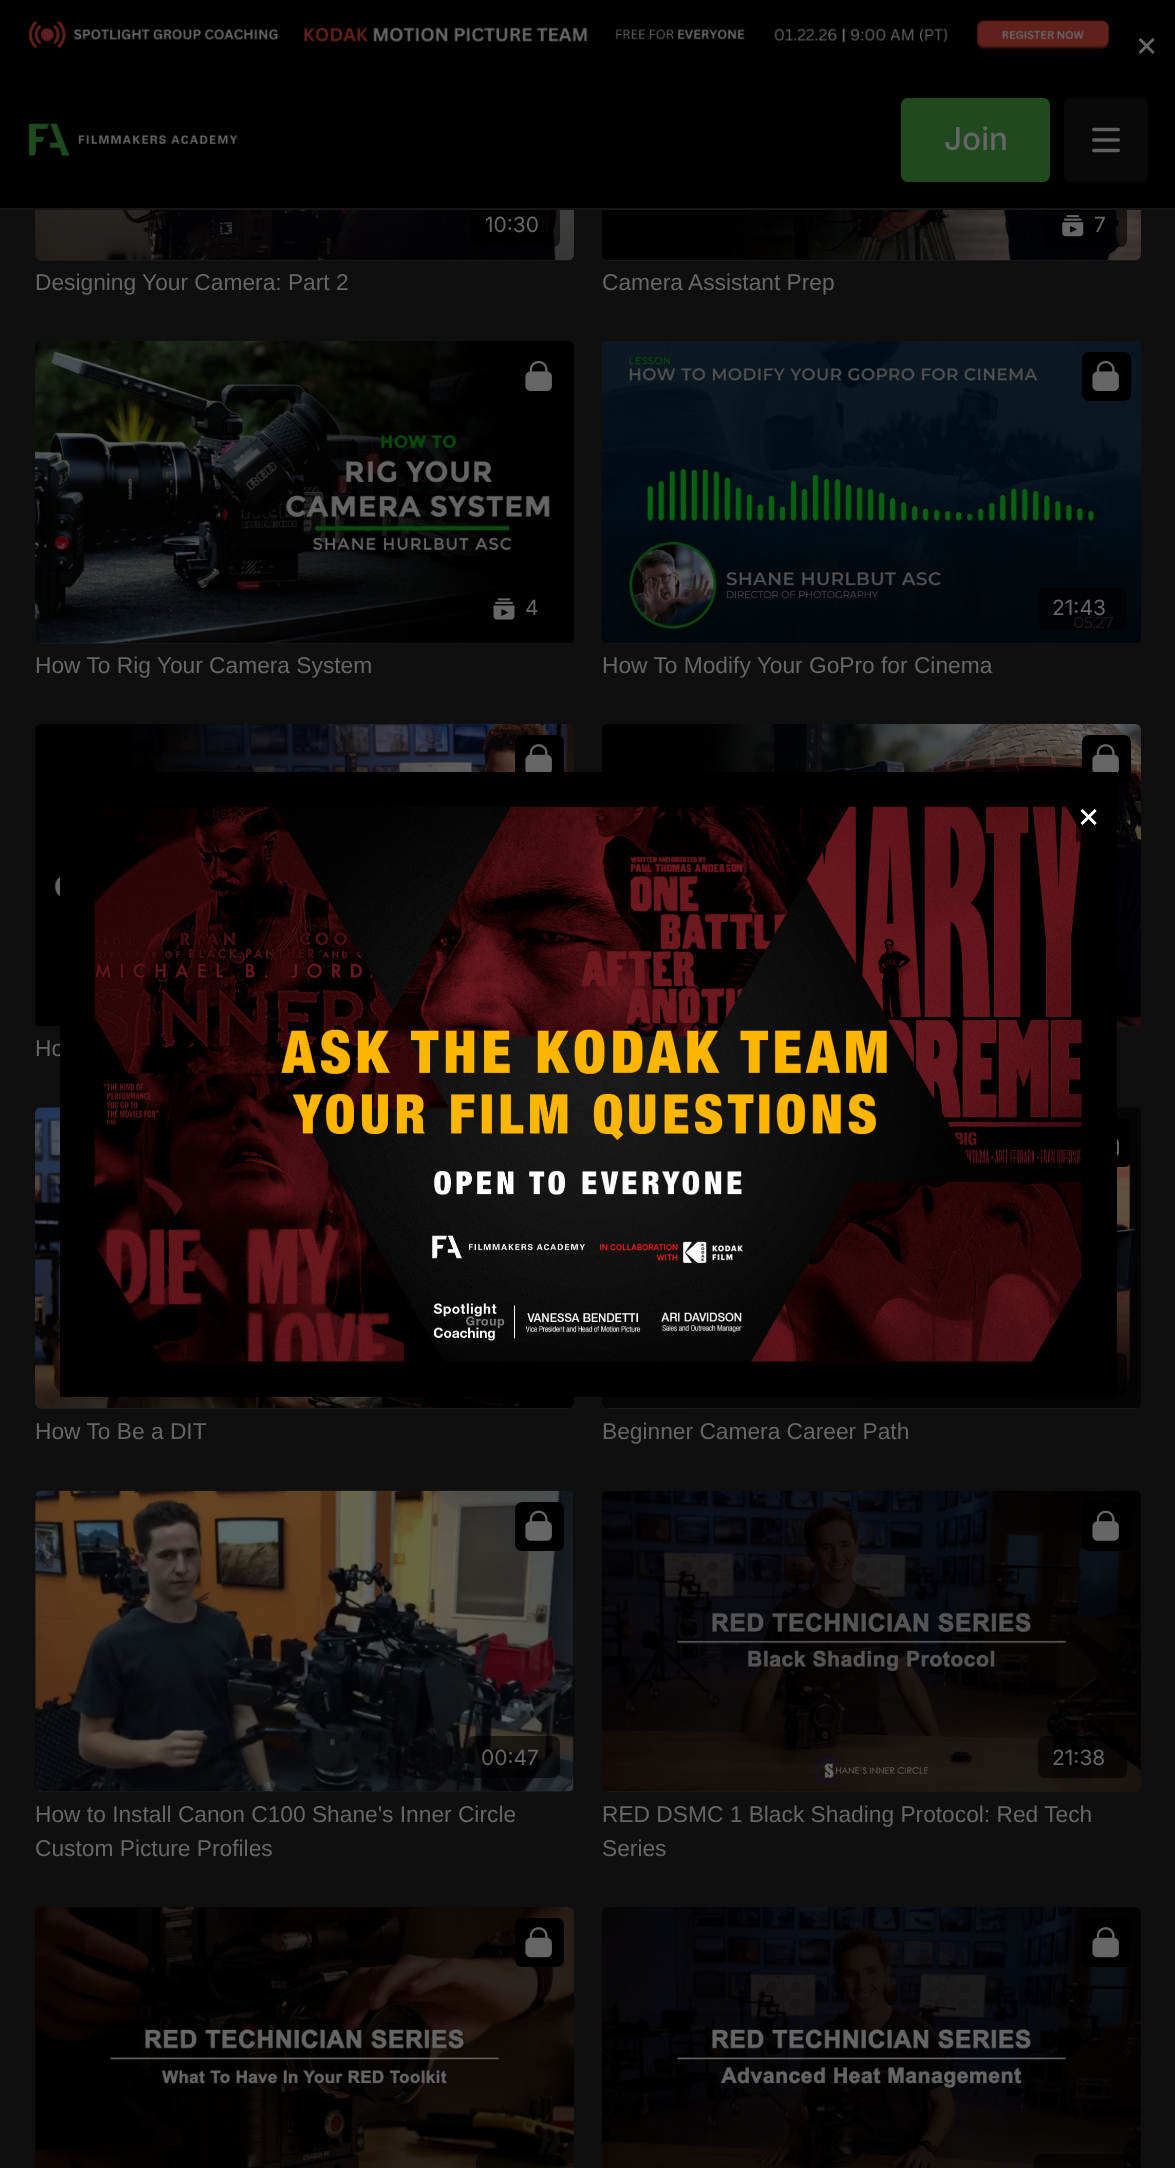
<svg xmlns="http://www.w3.org/2000/svg" width="1175" height="2168">
<defs>
<linearGradient id="g1" gradientUnits="userSpaceOnUse" x1="35" y1="109" x2="574" y2="109"><stop offset="0.08" stop-color="#1a1a1a"/><stop offset="0.18" stop-color="#191919"/><stop offset="0.33" stop-color="#181818"/></linearGradient>
<linearGradient id="g2" gradientUnits="userSpaceOnUse" x1="602" y1="109" x2="1141" y2="109"><stop offset="0.08" stop-color="#1a1a1a"/><stop offset="0.18" stop-color="#191919"/><stop offset="0.33" stop-color="#181818"/></linearGradient>
<linearGradient id="g3" gradientUnits="userSpaceOnUse" x1="602" y1="876" x2="1141" y2="876"><stop offset="0.08" stop-color="#1a1a1a"/><stop offset="0.18" stop-color="#191919"/><stop offset="0.33" stop-color="#181818"/></linearGradient>
<linearGradient id="g4" gradientUnits="userSpaceOnUse" x1="35" y1="876" x2="574" y2="876"><stop offset="0.08" stop-color="#1a1a1a"/><stop offset="0.18" stop-color="#191919"/><stop offset="0.33" stop-color="#181818"/></linearGradient>
<linearGradient id="g5" gradientUnits="userSpaceOnUse" x1="35" y1="1258" x2="574" y2="1258"><stop offset="0.08" stop-color="#1a1a1a"/><stop offset="0.18" stop-color="#191919"/><stop offset="0.33" stop-color="#181818"/></linearGradient>
<linearGradient id="g6" gradientUnits="userSpaceOnUse" x1="602" y1="1258" x2="1141" y2="1258"><stop offset="0.08" stop-color="#1a1a1a"/><stop offset="0.18" stop-color="#191919"/><stop offset="0.33" stop-color="#181818"/></linearGradient>
<linearGradient id="g7" gradientUnits="userSpaceOnUse" x1="35" y1="493" x2="574" y2="493"><stop offset="0.08" stop-color="#1a1a1a"/><stop offset="0.18" stop-color="#191919"/><stop offset="0.33" stop-color="#181818"/></linearGradient>
<linearGradient id="g8" gradientUnits="userSpaceOnUse" x1="602" y1="493" x2="1141" y2="493"><stop offset="0.08" stop-color="#1a1a1a"/><stop offset="0.18" stop-color="#191919"/><stop offset="0.33" stop-color="#181818"/></linearGradient>
<linearGradient id="g9" gradientUnits="userSpaceOnUse" x1="35" y1="1642" x2="574" y2="1642"><stop offset="0.08" stop-color="#1a1a1a"/><stop offset="0.18" stop-color="#191919"/><stop offset="0.33" stop-color="#181818"/></linearGradient>
<linearGradient id="g10" gradientUnits="userSpaceOnUse" x1="602" y1="1642" x2="1141" y2="1642"><stop offset="0.08" stop-color="#1a1a1a"/><stop offset="0.18" stop-color="#191919"/><stop offset="0.33" stop-color="#181818"/></linearGradient>
</defs>
<rect width="100%" height="100%" fill="#0f0f0f"/>
<rect x="35" y="-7" width="539" height="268" rx="7" fill="url(#g1)"/>
<image x="35" y="210" width="539" height="50" href="media/5.png"/>
<rect x="471" y="205" width="89" height="42" rx="7" fill="#00000099"/>
<rect x="602" y="-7" width="539" height="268" rx="7" fill="url(#g2)"/>
<image x="602" y="210" width="539" height="50" href="media/6.png"/>
<rect x="1045" y="205" width="82" height="42" rx="7" fill="#00000099"/>
<rect width="1175" height="208" fill="#000"/>
<image x="28" y="20" width="1082" height="29" href="media/1.png"/>
<text x="1135" y="56" style="font-family:Inter;font-size:35px;fill:#666">×</text>
<rect y="208" width="1175" height="2" fill="#161616"/>
<image x="28" y="123" width="210" height="34" href="media/2.png"/>
<rect x="901" y="98" width="149" height="84" rx="7" fill="#204a1d"/>
<text x="944" y="150" style="font-family:Inter;font-size:31.5px;font-weight:500;fill:#666">Join</text>
<rect x="1064" y="98" width="84" height="84" rx="7" fill="#090909"/>
<image x="1092" y="127" width="28" height="26" href="media/3.png"/>
<rect x="602" y="725" width="539" height="302" rx="7" fill="url(#g3)"/>
<image x="602" y="724" width="539" height="303" href="media/12.png"/>
<rect x="1045" y="971" width="82" height="42" rx="7" fill="#00000099"/>
<rect x="1082" y="735" width="49" height="49" rx="7" fill="#000"/>
<image x="1092" y="744" width="27" height="29" href="media/13.png"/>
<rect x="35" y="725" width="539" height="302" rx="7" fill="url(#g4)"/>
<image x="35" y="724" width="539" height="303" href="media/14.png"/>
<rect x="515" y="735" width="49" height="49" rx="7" fill="#000"/>
<text x="35" y="1056" style="font-family:Liberation Sans;font-size:22.75px;fill:#666">Ho</text>
<rect x="35" y="1108" width="539" height="301" rx="7" fill="url(#g5)"/>
<image x="35" y="1107" width="539" height="301" href="media/16.png"/>
<rect x="602" y="1108" width="539" height="301" rx="7" fill="url(#g6)"/>
<image x="602" y="1107" width="539" height="301" href="media/17.png"/>
<rect x="1036" y="1353" width="91" height="42" rx="7" fill="#00000099"/>
<rect x="1082" y="1118" width="49" height="49" rx="7" fill="#000"/>
<rect x="60" y="772" width="1057" height="625" fill="#000"/>
<image x="94" y="806" width="988" height="556" href="media/4.png"/>
<rect x="1076" y="823" width="6" height="19" fill="#00000099"/>
<text x="1077" y="827" style="font-family:Inter;font-size:35px;fill:#fff">×</text>
<text x="485" y="232" style="font-family:Inter;font-size:21px;fill:#666">10:30</text>
<text x="35" y="290" style="font-family:Liberation Sans;font-size:22.75px;fill:#666">Designing Your Camera: Part 2</text>
<image x="1062" y="215" width="22" height="22" href="media/7.png"/>
<text x="1094" y="232" style="font-family:Inter;font-size:21px;fill:#666">7</text>
<text x="602" y="290" style="font-family:Liberation Sans;font-size:22.75px;fill:#666">Camera Assistant Prep</text>
<rect x="35" y="341" width="539" height="303" rx="7" fill="url(#g7)"/>
<image x="35" y="341" width="539" height="303" href="media/9.png"/>
<image x="525" y="361" width="27" height="30" href="media/8.png"/>
<image x="493" y="598" width="22" height="22" href="media/10.png"/>
<text x="525" y="615" style="font-family:Inter;font-size:21px;fill:#666">4</text>
<text x="35" y="673" style="font-family:Liberation Sans;font-size:22.75px;fill:#666">How To Rig Your Camera System</text>
<rect x="602" y="341" width="539" height="303" rx="7" fill="url(#g8)"/>
<image x="602" y="341" width="539" height="303" href="media/11.png"/>
<rect x="1082" y="352" width="49" height="49" rx="7" fill="#000"/>
<image x="1092" y="361" width="27" height="30" href="media/8.png"/>
<rect x="1038" y="588" width="89" height="42" rx="7" fill="#00000099"/>
<text x="1052" y="615" style="font-family:Inter;font-size:21px;fill:#666">21:43</text>
<text x="602" y="673" style="font-family:Liberation Sans;font-size:22.75px;fill:#666">How To Modify Your GoPro for Cinema</text>
<image x="525" y="744" width="27" height="28" href="media/15.png"/>
<text x="35" y="1439" style="font-family:Liberation Sans;font-size:22.75px;fill:#666">How To Be a DIT</text>
<image x="1117" y="1139" width="2" height="18" href="media/18.png"/>
<text x="602" y="1439" style="font-family:Liberation Sans;font-size:22.75px;fill:#666">Beginner Camera Career Path</text>
<rect x="35" y="1491" width="539" height="301" rx="7" fill="url(#g9)"/>
<image x="35" y="1490" width="539" height="302" href="media/20.png"/>
<rect x="515" y="1502" width="49" height="49" rx="7" fill="#000"/>
<image x="525" y="1510" width="27" height="31" href="media/19.png"/>
<rect x="467" y="1736" width="93" height="42" rx="7" fill="#00000099"/>
<text x="481" y="1765" style="font-family:Inter;font-size:21px;fill:#666">00:47</text>
<text x="35" y="1822" style="font-family:Liberation Sans;font-size:22.75px;fill:#666">How to Install Canon C100 Shane's Inner Circle</text>
<text x="35" y="1856" style="font-family:Liberation Sans;font-size:22.75px;fill:#666">Custom Picture Profiles</text>
<rect x="602" y="1491" width="539" height="301" rx="7" fill="url(#g10)"/>
<image x="602" y="1490" width="539" height="302" href="media/21.png"/>
<rect x="1082" y="1502" width="49" height="49" rx="7" fill="#000"/>
<image x="1092" y="1510" width="27" height="31" href="media/19.png"/>
<rect x="1038" y="1736" width="89" height="42" rx="7" fill="#00000099"/>
<text x="1052" y="1765" style="font-family:Inter;font-size:21px;fill:#666">21:38</text>
<text x="602" y="1822" style="font-family:Liberation Sans;font-size:22.75px;fill:#666">RED DSMC 1 Black Shading Protocol: Red Tech</text>
<text x="602" y="1856" style="font-family:Liberation Sans;font-size:22.75px;fill:#666">Series</text>
<image x="35" y="1907" width="539" height="261" href="media/22.png"/>
<rect x="476" y="2154" width="84" height="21" rx="7" fill="#00000099"/>
<rect x="515" y="1918" width="49" height="49" rx="7" fill="#000"/>
<image x="525" y="1927" width="27" height="31" href="media/23.png"/>
<image x="602" y="1907" width="539" height="261" href="media/24.png"/>
<rect x="1034" y="2154" width="93" height="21" rx="7" fill="#00000099"/>
<rect x="1082" y="1918" width="49" height="49" rx="7" fill="#000"/>
<image x="1092" y="1927" width="27" height="31" href="media/23.png"/>
</svg>
